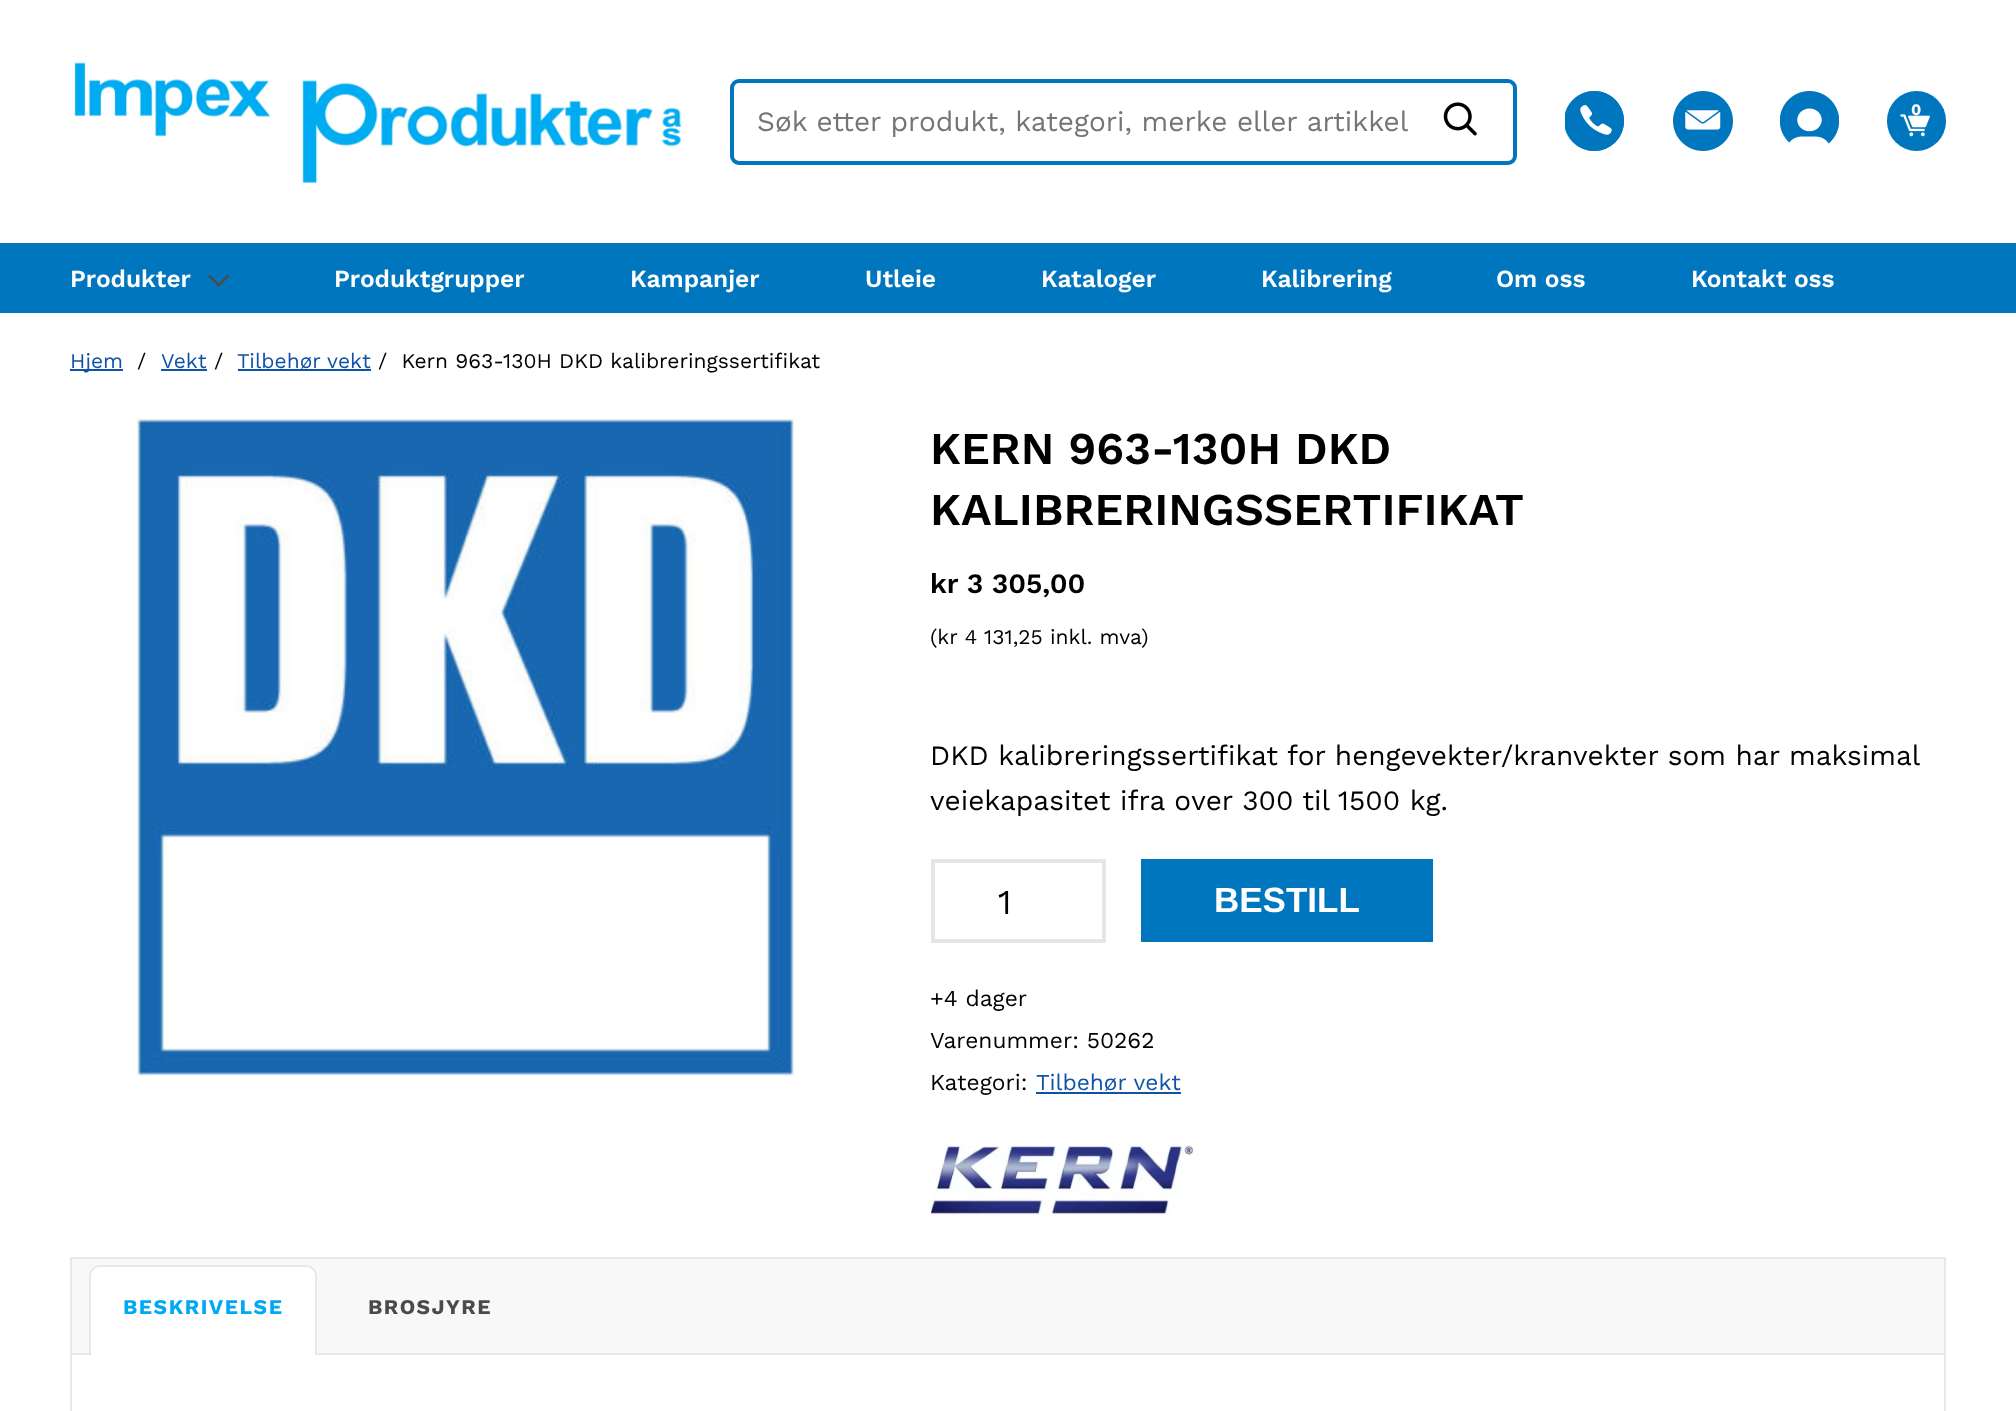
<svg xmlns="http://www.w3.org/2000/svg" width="2016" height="1411">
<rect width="100%" height="100%" fill="#fff"/>
<image x="74" y="62" width="609" height="121" href="media/1.png"/>
<rect x="732" y="81" width="783" height="82" rx="7" fill="none" stroke="#0076bf" stroke-width="4"/>
<image x="1443" y="102" width="34" height="34" href="media/2.png"/>
<text x="757" y="131" style="font-family:Work Sans;font-size:28px;fill:#757575">Søk etter produkt, kategori, merke eller artikkel</text>
<rect x="1565" y="91" width="59" height="60" rx="29.5" fill="#0076bf"/>
<image x="1565" y="91" width="59" height="60" href="media/3.png"/>
<image x="1673" y="91" width="60" height="60" href="media/4.png"/>
<image x="1780" y="91" width="59" height="53" href="media/5.png"/>
<rect x="1887" y="91" width="59" height="60" rx="29.5" fill="#0076bf"/>
<image x="1900" y="114" width="30" height="23" href="media/6.png"/>
<text x="1911" y="115" style="font-family:Work Sans;font-size:16px;font-weight:bold;fill:#fff">0</text>
<rect y="243" width="2016" height="70" fill="#0076bf"/>
<text x="70" y="287" style="font-family:Work Sans;font-size:24.5px;font-weight:600;fill:#fff">Produkter</text>
<image x="208" y="275" width="21" height="12" href="media/7.png"/>
<text x="334" y="287" style="font-family:Work Sans;font-size:24.5px;font-weight:600;fill:#fff">Produktgrupper</text>
<text x="630" y="287" style="font-family:Work Sans;font-size:24.5px;font-weight:600;fill:#fff">Kampanjer</text>
<text x="865" y="287" style="font-family:Work Sans;font-size:24.5px;font-weight:600;fill:#fff">Utleie</text>
<text x="1041" y="287" style="font-family:Work Sans;font-size:24.5px;font-weight:600;fill:#fff">Kataloger</text>
<text x="1261" y="287" style="font-family:Work Sans;font-size:24.5px;font-weight:600;fill:#fff">Kalibrering</text>
<text x="1496" y="287" style="font-family:Work Sans;font-size:24.5px;font-weight:600;fill:#fff">Om oss</text>
<text x="1691" y="287" style="font-family:Work Sans;font-size:24.5px;font-weight:600;fill:#fff">Kontakt oss</text>
<rect x="70" y="369" width="53" height="2" fill="#0e53a5"/>
<text x="70" y="368" style="font-family:Work Sans;font-size:21px;fill:#0e53a5">Hjem</text>
<text x="137" y="368" style="font-family:Work Sans;font-size:21px;fill:#000">/</text>
<text x="161" y="368" style="font-family:Work Sans;font-size:21px;fill:#0e53a5">Vekt</text>
<rect x="161" y="369" width="46" height="2" fill="#0e53a5"/>
<text x="214" y="368" style="font-family:Work Sans;font-size:21px;fill:#000">/</text>
<text x="237" y="368" style="font-family:Work Sans;font-size:21px;fill:#0e53a5">Tilbehør vekt</text>
<rect x="238" y="369" width="133" height="2" fill="#0e53a5"/>
<text x="378" y="368" style="font-family:Work Sans;font-size:21px;fill:#000" xml:space="preserve">/  Kern 963-130H DKD kalibreringssertifikat</text>
<image x="136" y="418" width="659" height="658" href="media/8.png"/>
<text x="930" y="464" style="font-family:Work Sans;font-size:45.5px;font-weight:600;fill:#000">KERN 963-130H DKD</text>
<text x="930" y="525" style="font-family:Work Sans;font-size:45.5px;font-weight:600;fill:#000">KALIBRERINGSSERTIFIKAT</text>
<text x="930" y="593" style="font-family:Work Sans;font-size:28px;font-weight:600;fill:#000">kr 3 305,00</text>
<text x="930" y="644" style="font-family:Work Sans;font-size:21px;fill:#000">(kr 4 131,25 inkl. mva)</text>
<text x="930" y="765" style="font-family:Work Sans;font-size:28px;fill:#000">DKD kalibreringssertifikat for hengevekter/kranvekter som har maksimal</text>
<text x="930" y="810" style="font-family:Work Sans;font-size:28px;fill:#000">veiekapasitet ifra over 300 til 1500 kg.</text>
<rect x="933" y="861" width="171" height="80" fill="none" stroke="#e6e6e6" stroke-width="4"/>
<text x="998" y="914" style="font-family:Work Sans;font-size:35px;fill:#000">1</text>
<rect x="1141" y="859" width="292" height="83" fill="#0076bf"/>
<text x="1214" y="912" style="font-family:Liberation Sans;font-size:35px;font-weight:bold;fill:#fff">BESTILL</text>
<text x="930" y="1006" style="font-family:Work Sans;font-size:22.75px;fill:#000">+4 dager</text>
<text x="930" y="1048" style="font-family:Work Sans;font-size:22.75px;fill:#000">Varenummer: 50262</text>
<text x="930" y="1090" style="font-family:Work Sans;font-size:22.75px;fill:#000">Kategori:</text>
<text x="1036" y="1090" style="font-family:Work Sans;font-size:22.75px;fill:#0e53a5">Tilbehør vekt</text>
<rect x="1036" y="1092" width="145" height="2" fill="#0e53a5"/>
<image x="931" y="1145" width="263" height="72" href="media/9.png"/>
<rect x="71" y="1258" width="1874" height="96" fill="#f8f8f8" stroke="#e8e8e8" stroke-width="2"/>
<path d="M100 1265h206c6 0 11 5 11 11v77h-228v-77c0-6 5-11 11-11z" fill="#fff"/>
<path d="M100 1265h206c6 0 11 5 11 11v77h-228v-77c0-6 5-11 11-11zm0 2h206c5 0 9 4 9 9v77h-224v-77c0-5 4-9 9-9z" fill="#e8e8e8" fill-rule="evenodd"/>
<text x="123" y="1314" style="font-family:Work Sans;font-size:21px;font-weight:bold;letter-spacing:1.5px;fill:#00a9f4">BESKRIVELSE</text>
<rect x="91" y="1353" width="224" height="2" fill="#fff"/>
<text x="368" y="1314" style="font-family:Work Sans;font-size:21px;font-weight:bold;letter-spacing:1.5px;fill:#4a4a4a">BROSJYRE</text>
<rect x="1944" y="1355" width="2" height="56" fill="#e8e8e8"/>
<rect x="70" y="1355" width="2" height="56" fill="#e8e8e8"/>
</svg>
